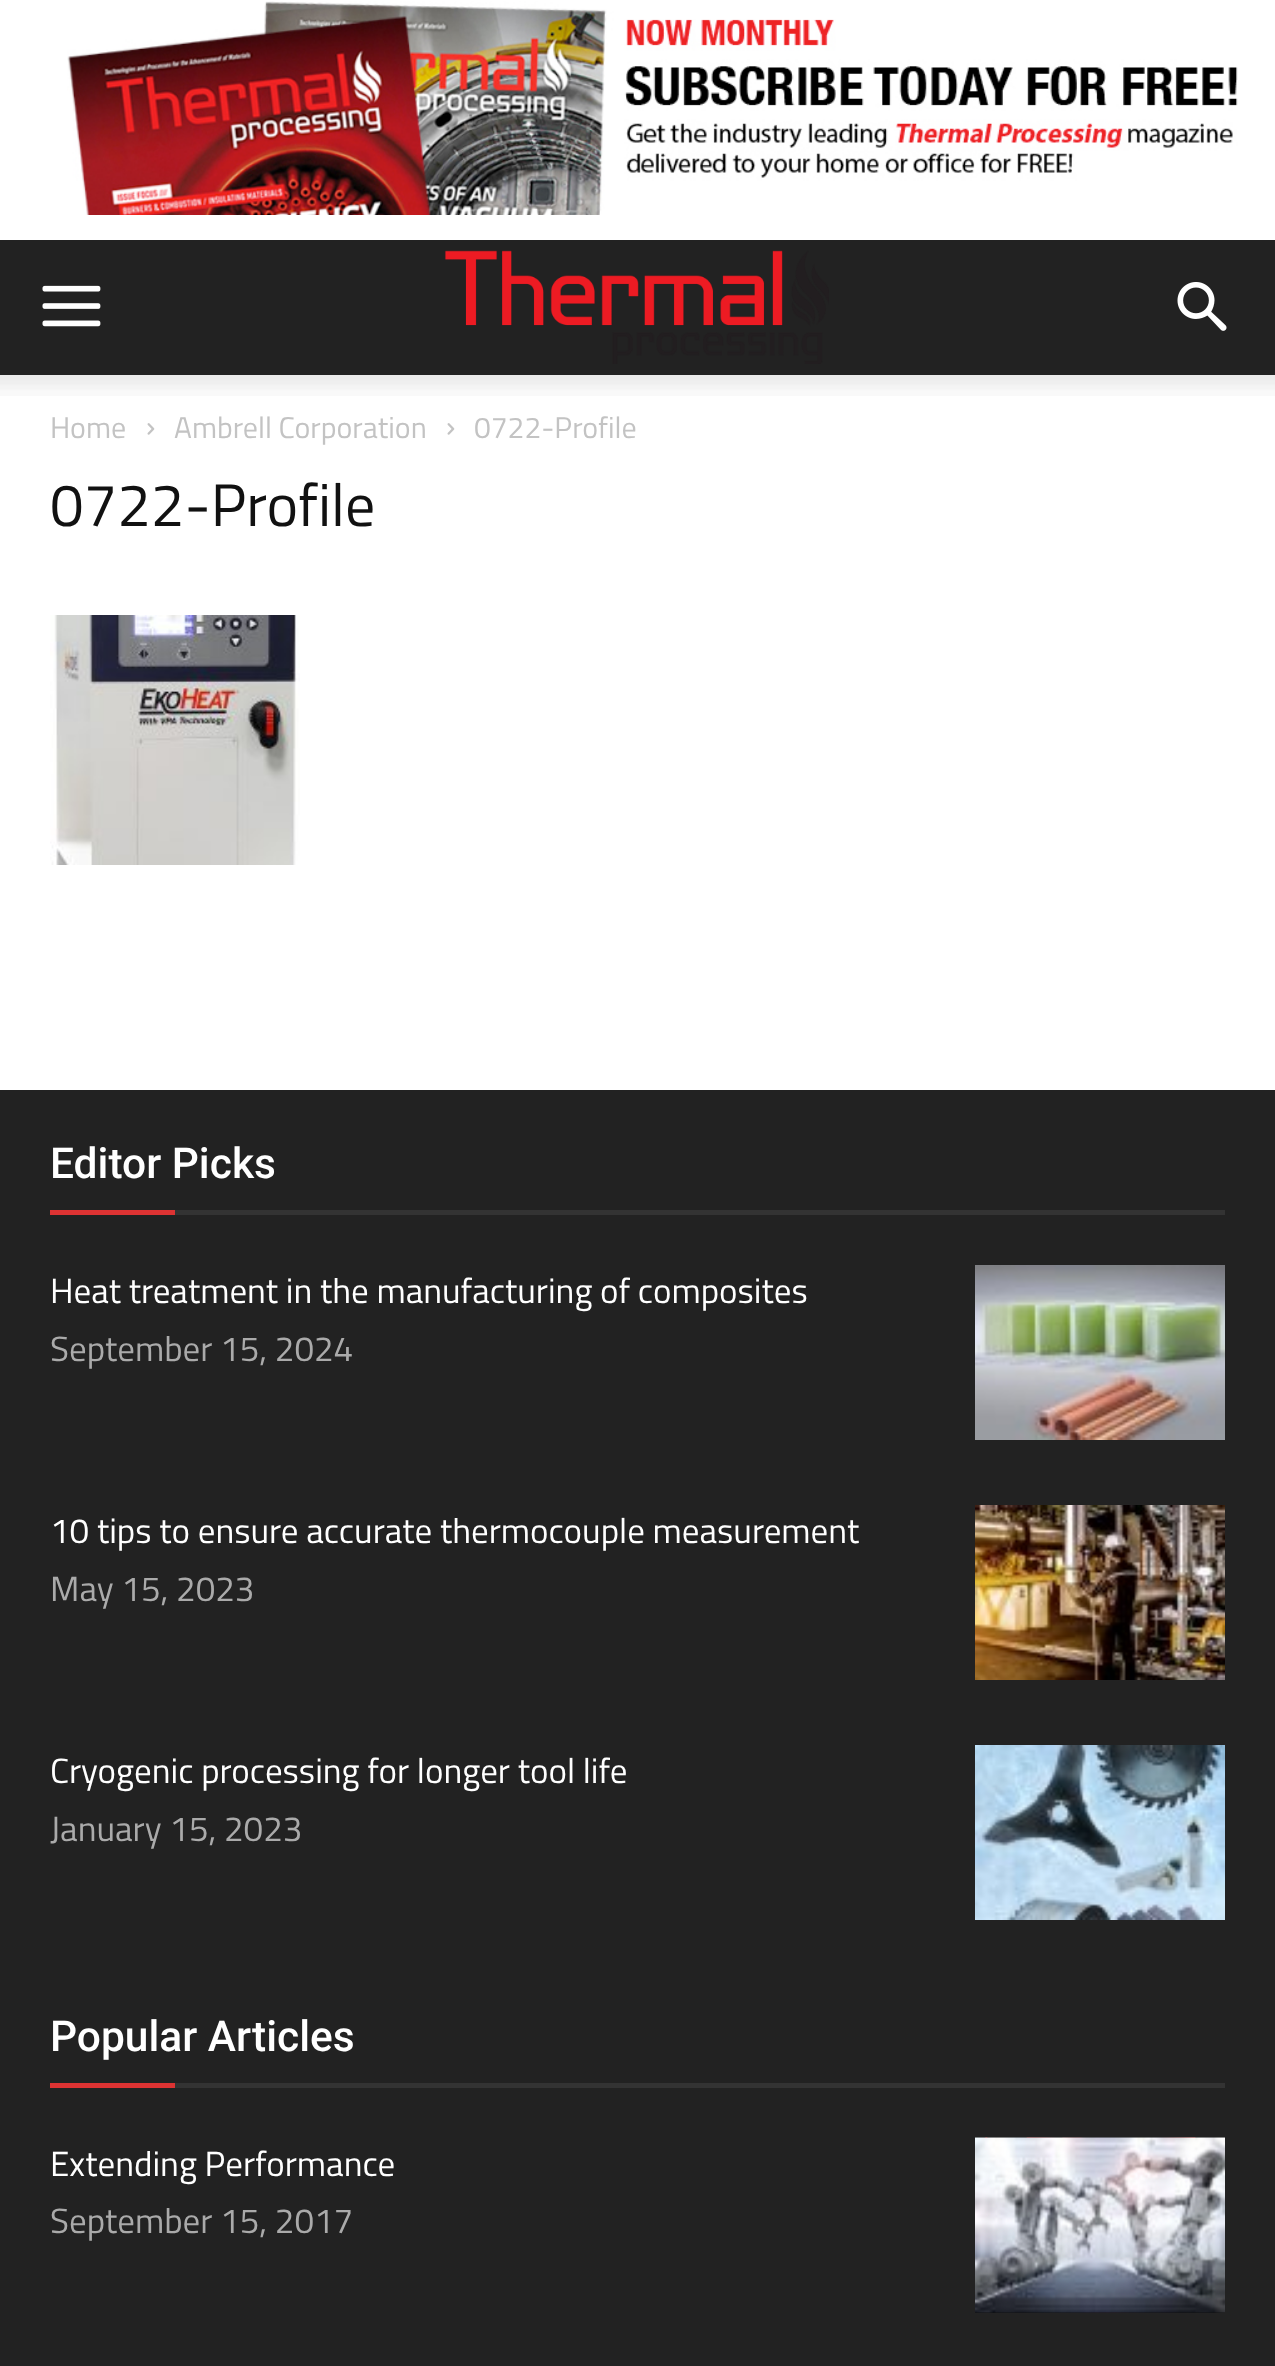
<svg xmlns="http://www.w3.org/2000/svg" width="1275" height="2366">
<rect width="100%" height="100%" fill="#fff"/>
<image x="67" y="1" width="1171" height="214" href="media/1.png"/>
<rect y="240" width="1275" height="135" fill="#222"/>
<image x="42" y="285" width="59" height="42" href="media/2.png"/>
<image x="444" y="250" width="385" height="114" href="media/3.png"/>
<image x="1177" y="282" width="50" height="49" href="media/4.png"/>
<image x="0" y="375" width="1275" height="21" href="media/5.png"/>
<text x="50" y="438" style="font-family:Titillium Web;font-size:30px;fill:#c3c3c3">Home</text>
<image x="147" y="423" width="8" height="12" href="media/6.png"/>
<text x="174" y="438" style="font-family:Titillium Web;font-size:30px;fill:#c3c3c3">Ambrell Corporation</text>
<image x="447" y="423" width="8" height="12" href="media/6.png"/>
<text x="474" y="438" style="font-family:Titillium Web;font-size:30px;fill:#c3c3c3">0722-Profile</text>
<text x="50" y="526" style="font-family:Titillium Web;font-size:60px;fill:#111">0722-Profile</text>
<image x="50" y="615" width="250" height="250" href="media/7.png"/>
<rect y="1090" width="1275" height="1276" fill="#222"/>
<text x="50" y="1178" style="font-family:Roboto;font-size:42.5px;font-weight:500;fill:#fff">Editor Picks</text>
<rect x="50" y="1210" width="125" height="5" fill="#d33"/>
<rect x="175" y="1210" width="1050" height="5" fill="#333"/>
<text x="50" y="1303" style="font-family:Titillium Web;font-size:35px;fill:#fff">Heat treatment in the manufacturing of composites</text>
<text x="50" y="1361" style="font-family:Titillium Web;font-size:35px;fill:#aaa">September 15, 2024</text>
<image x="975" y="1265" width="250" height="175" href="media/8.png"/>
<text x="50" y="1543" style="font-family:Titillium Web;font-size:35px;fill:#fff">10 tips to ensure accurate thermocouple measurement</text>
<text x="50" y="1601" style="font-family:Titillium Web;font-size:35px;fill:#aaa">May 15, 2023</text>
<image x="975" y="1505" width="250" height="175" href="media/9.png"/>
<text x="50" y="1783" style="font-family:Titillium Web;font-size:35px;fill:#fff">Cryogenic processing for longer tool life</text>
<text x="50" y="1841" style="font-family:Titillium Web;font-size:35px;fill:#aaa">January 15, 2023</text>
<image x="975" y="1745" width="250" height="175" href="media/10.png"/>
<text x="50" y="2051" style="font-family:Roboto;font-size:42.5px;font-weight:500;fill:#fff">Popular Articles</text>
<rect x="50" y="2083" width="125" height="5" fill="#d33"/>
<rect x="175" y="2083" width="1050" height="5" fill="#333"/>
<text x="50" y="2176" style="font-family:Titillium Web;font-size:35px;fill:#fff">Extending Performance</text>
<text x="50" y="2233" style="font-family:Titillium Web;font-size:35px;fill:#aaa">September 15, 2017</text>
<image x="975" y="2137" width="250" height="176" href="media/11.png"/>
<image x="975" y="2137" width="250" height="176" href="media/12.png"/>
</svg>
